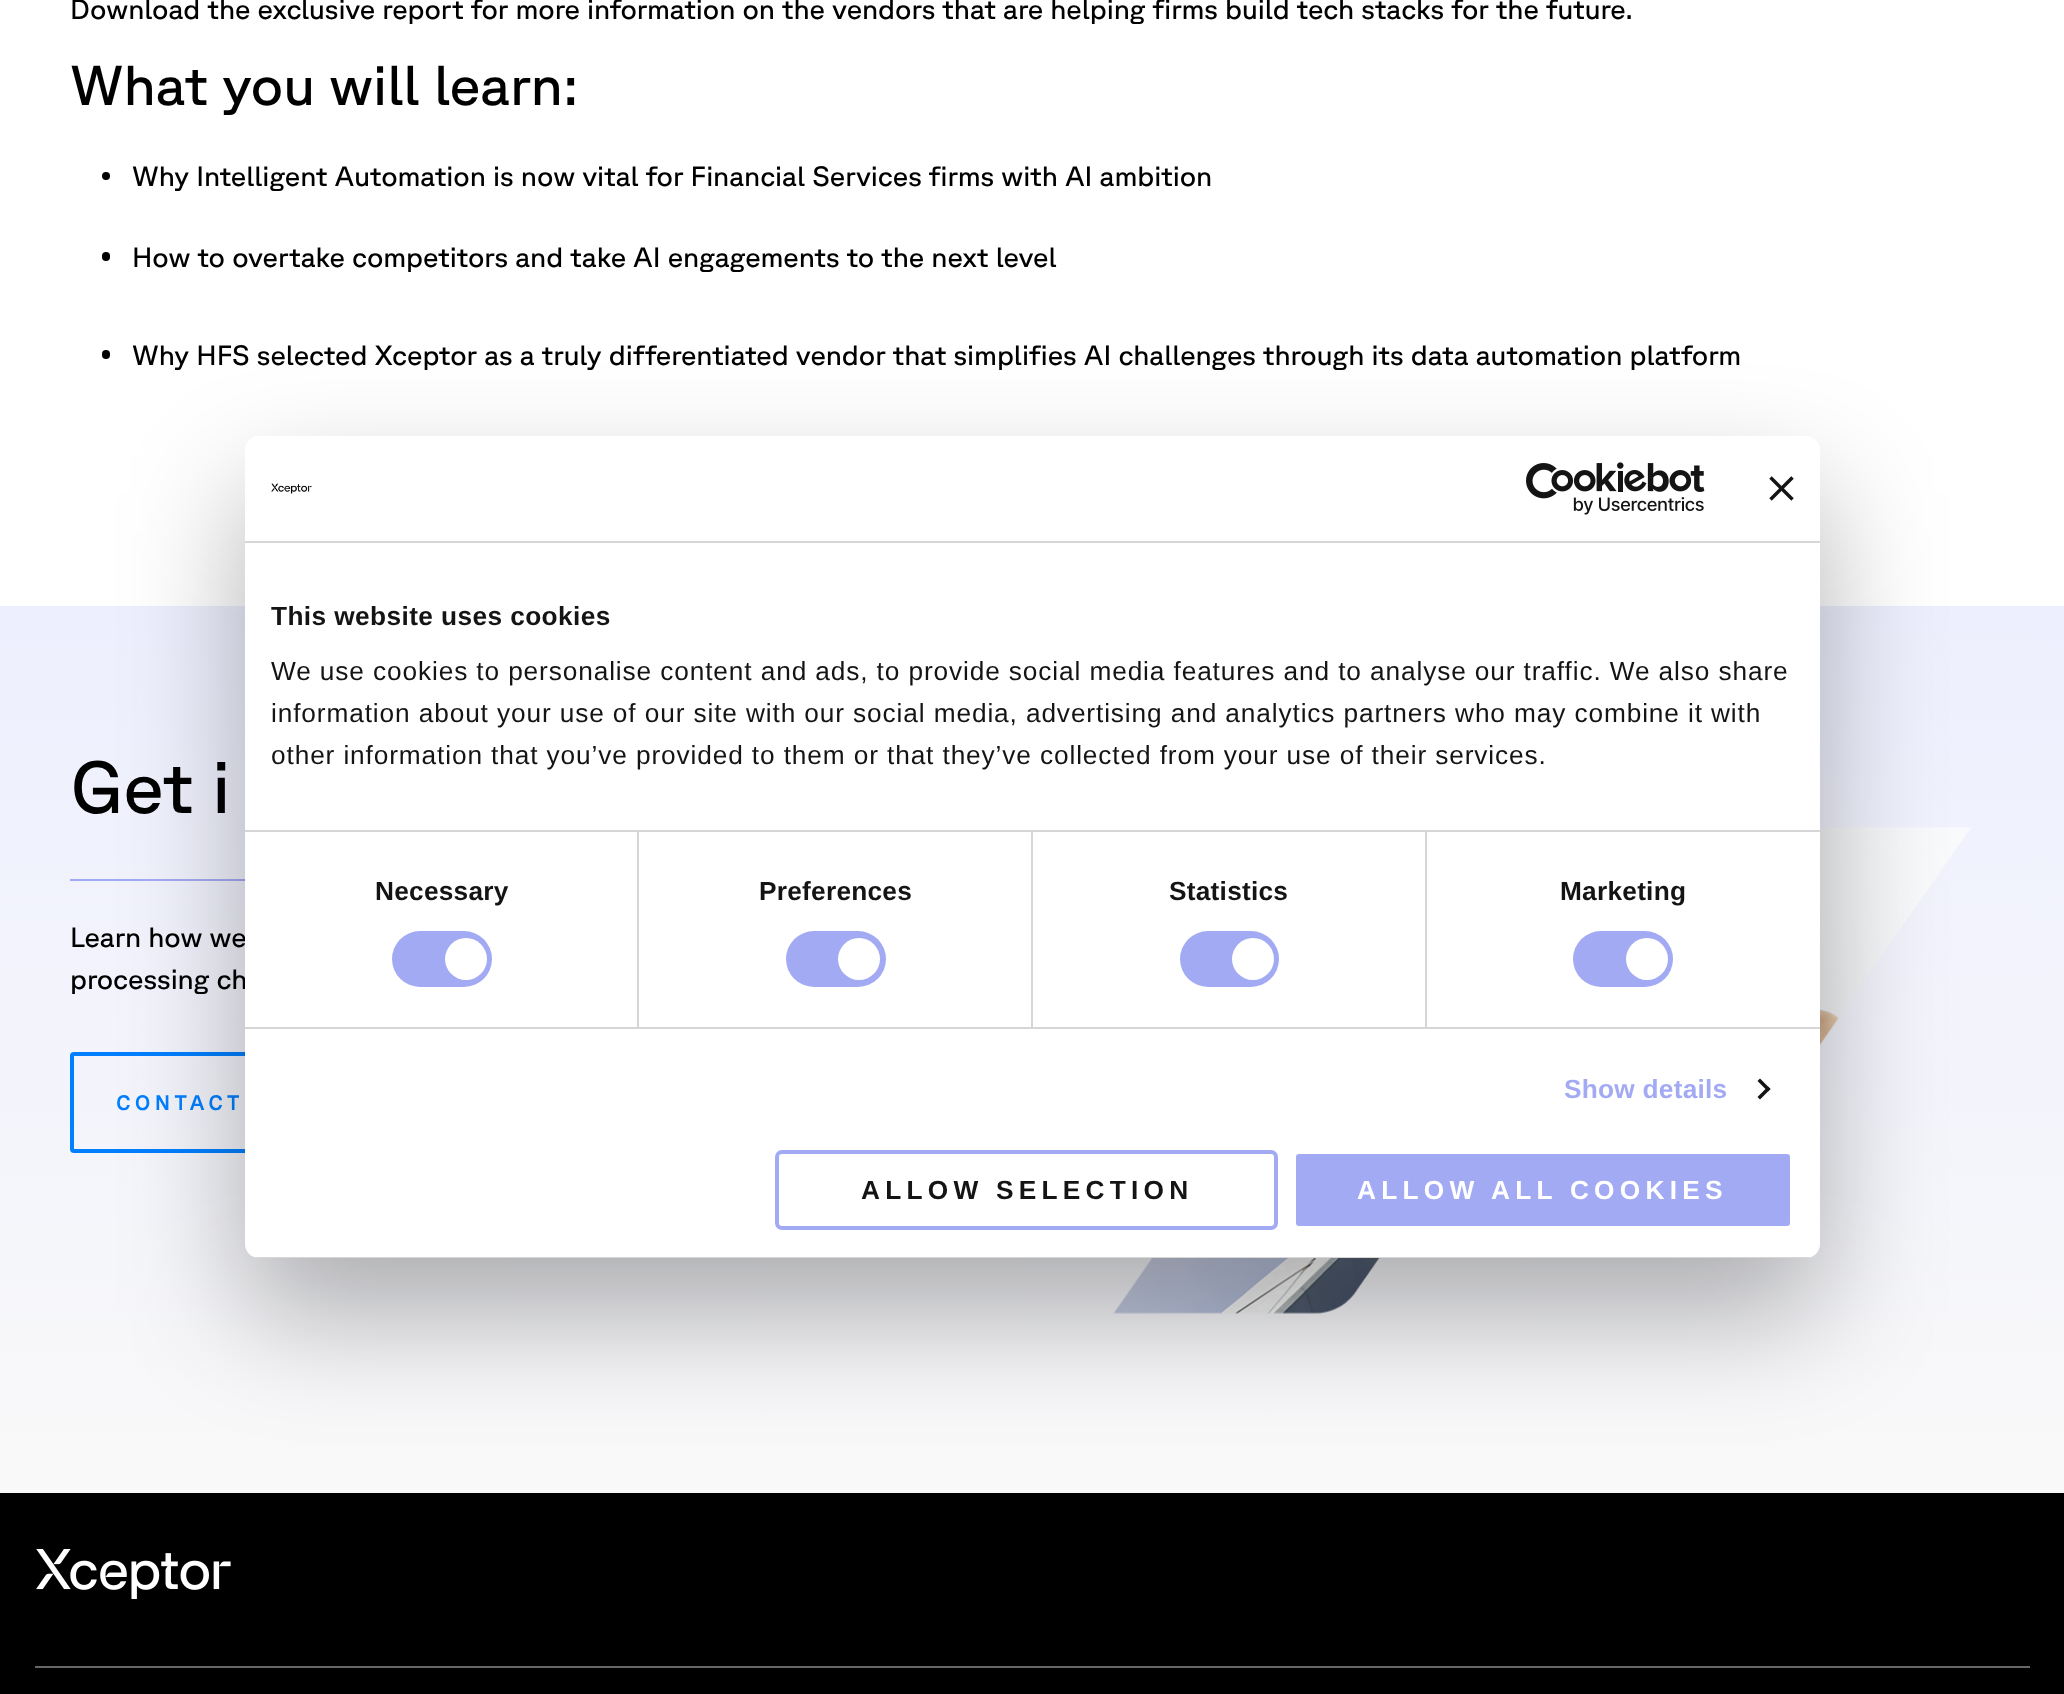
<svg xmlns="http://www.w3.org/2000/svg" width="2064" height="1694">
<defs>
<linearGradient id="g1" gradientUnits="userSpaceOnUse" x1="1033" y1="605" x2="1033" y2="1493"><stop offset="0" stop-color="#edeffe"/><stop offset="1" stop-color="#f9f9f9"/></linearGradient>
<clipPath id="clip1"><rect x="245" y="436" width="1575" height="822" rx="14"/></clipPath>
</defs>
<rect width="100%" height="100%" fill="#fff"/>
<text x="70" y="19" style="font-family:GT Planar;font-size:28px;fill:#000">Download the exclusive report for more information on the vendors that are helping firms build tech stacks for the future.</text>
<text x="70" y="105" style="font-family:GT Planar;font-size:56px;fill:#000">What you will learn:</text>
<circle cx="106" cy="176" r="4" fill="#000"/>
<text x="132" y="186" style="font-family:GT Planar;font-size:28px;fill:#000">Why Intelligent Automation is now vital for Financial Services firms with AI ambition</text>
<rect x="102" y="252" width="8" height="9" rx="4" fill="#000"/>
<text x="132" y="267" style="font-family:GT Planar;font-size:28px;fill:#000">How to overtake competitors and take AI engagements to the next level</text>
<rect x="102" y="350" width="8" height="9" rx="4" fill="#000"/>
<text x="132" y="365" style="font-family:GT Planar;font-size:28px;fill:#000">Why HFS selected Xceptor as a truly differentiated vendor that simplifies AI challenges through its data automation platform</text>
<rect y="606" width="2064" height="887" fill="url(#g1)"/>
<text x="70" y="813" style="font-family:GT Planar;font-size:73.5px;fill:#000">Get i</text>
<rect x="70" y="879" width="182" height="2" fill="#a3aaf4"/>
<text x="70" y="947" style="font-family:GT Planar;font-size:28px;fill:#000">Learn how we</text>
<text x="70" y="989" style="font-family:GT Planar;font-size:28px;fill:#000">processing ch</text>
<rect x="72" y="1054" width="318" height="97" rx="2" fill="none" stroke="#027fff" stroke-width="4"/>
<text x="116" y="1110" style="font-family:GT Planar;font-size:21px;font-weight:500;letter-spacing:4.25px;fill:#027fff">CONTACT</text>
<image x="1113" y="826" width="858" height="488" href="media/1.png"/>
<rect y="1493" width="2064" height="201" fill="#000"/>
<rect x="35" y="1666" width="1995" height="2" fill="#666"/>
<image x="36" y="1549" width="195" height="50" href="media/2.png"/>
<rect x="245" y="492" width="1575" height="822" rx="14" fill="#0000004d" filter="blur(59.5px)"/>
<rect x="245" y="436" width="1575" height="822" rx="14" fill="#fff"/>
<rect x="245" y="541" width="1575" height="2" fill="#d6d6d6"/>
<image x="271" y="483" width="41" height="11" href="media/3.png"/>
<image x="1526" y="462" width="179" height="53" href="media/4.png"/>
<image x="1769" y="476" width="25" height="25" href="media/5.png"/>
<rect x="637" y="831" width="2" height="196" fill="#d6d6d6"/>
<rect x="1031" y="831" width="2" height="196" fill="#d6d6d6"/>
<rect x="1425" y="831" width="2" height="196" fill="#d6d6d6"/>
<rect x="245" y="830" width="1575" height="2" fill="#d6d6d6"/>
<text x="271" y="625" style="font-family:Liberation Sans;font-size:26.25px;font-weight:bold;letter-spacing:0.4px;fill:#141414">This website uses cookies</text>
<text x="271" y="680" style="font-family:Liberation Sans;font-size:26.25px;letter-spacing:0.88px;fill:#141414">We use cookies to personalise content and ads, to provide social media features and to analyse our traffic. We also share</text>
<text x="271" y="722" style="font-family:Liberation Sans;font-size:26.25px;letter-spacing:0.88px;fill:#141414">information about your use of our site with our social media, advertising and analytics partners who may combine it with</text>
<text x="271" y="764" style="font-family:Liberation Sans;font-size:26.25px;letter-spacing:0.88px;fill:#141414">other information that you’ve provided to them or that they’ve collected from your use of their services.</text>
<rect x="245" y="1027" width="1575" height="2" fill="#d6d6d6"/>
<text x="375" y="900" style="font-family:Liberation Sans;font-size:26.25px;font-weight:bold;letter-spacing:0.25px;fill:#141414">Necessary</text>
<rect x="392" y="931" width="100" height="56" rx="28" fill="#a3aaf4"/>
<circle cx="466" cy="959" r="21" fill="#fff"/>
<text x="759" y="900" style="font-family:Liberation Sans;font-size:26.25px;font-weight:bold;letter-spacing:0.25px;fill:#141414">Preferences</text>
<rect x="786" y="931" width="100" height="56" rx="28" fill="#a3aaf4"/>
<circle cx="859" cy="959" r="21" fill="#fff"/>
<text x="1169" y="900" style="font-family:Liberation Sans;font-size:26.25px;font-weight:bold;letter-spacing:0.25px;fill:#141414">Statistics</text>
<rect x="1180" y="931" width="99" height="56" rx="28" fill="#a3aaf4"/>
<circle cx="1253" cy="959" r="21" fill="#fff"/>
<text x="1560" y="900" style="font-family:Liberation Sans;font-size:26.25px;font-weight:bold;letter-spacing:0.25px;fill:#141414">Marketing</text>
<rect x="1573" y="931" width="100" height="56" rx="28" fill="#a3aaf4"/>
<circle cx="1647" cy="959" r="21" fill="#fff"/>
<text x="1564" y="1098" style="font-family:Liberation Sans;font-size:26.25px;font-weight:bold;letter-spacing:0.25px;fill:#a3aaf4">Show details</text>
<path d="M1760 1078.5l10.5 10.5l-2.5 2.5l-10.5-10.5z" fill="#141414"/>
<path d="M1768 1086.5l2.5 2.5l-10.5 10.5l-2.5-2.5z" fill="#141414"/>
<g clip-path="url(#clip1)">
<rect x="254" y="1257" width="1557" height="1" fill="#d6d6d6"/>
</g>
<rect x="777" y="1152" width="499" height="76" rx="5" fill="none" stroke="#a3aaf4" stroke-width="4"/>
<text x="861" y="1199" style="font-family:Liberation Sans;font-size:26.25px;font-weight:bold;letter-spacing:5.25px;fill:#141414">ALLOW SELECTION</text>
<rect x="1294" y="1152" width="498" height="76" rx="5" fill="#a3aaf4" stroke="#fff" stroke-width="4"/>
<text x="1357" y="1199" style="font-family:Liberation Sans;font-size:26.25px;font-weight:bold;letter-spacing:5.25px;fill:#fff">ALLOW ALL COOKIES</text>
</svg>
